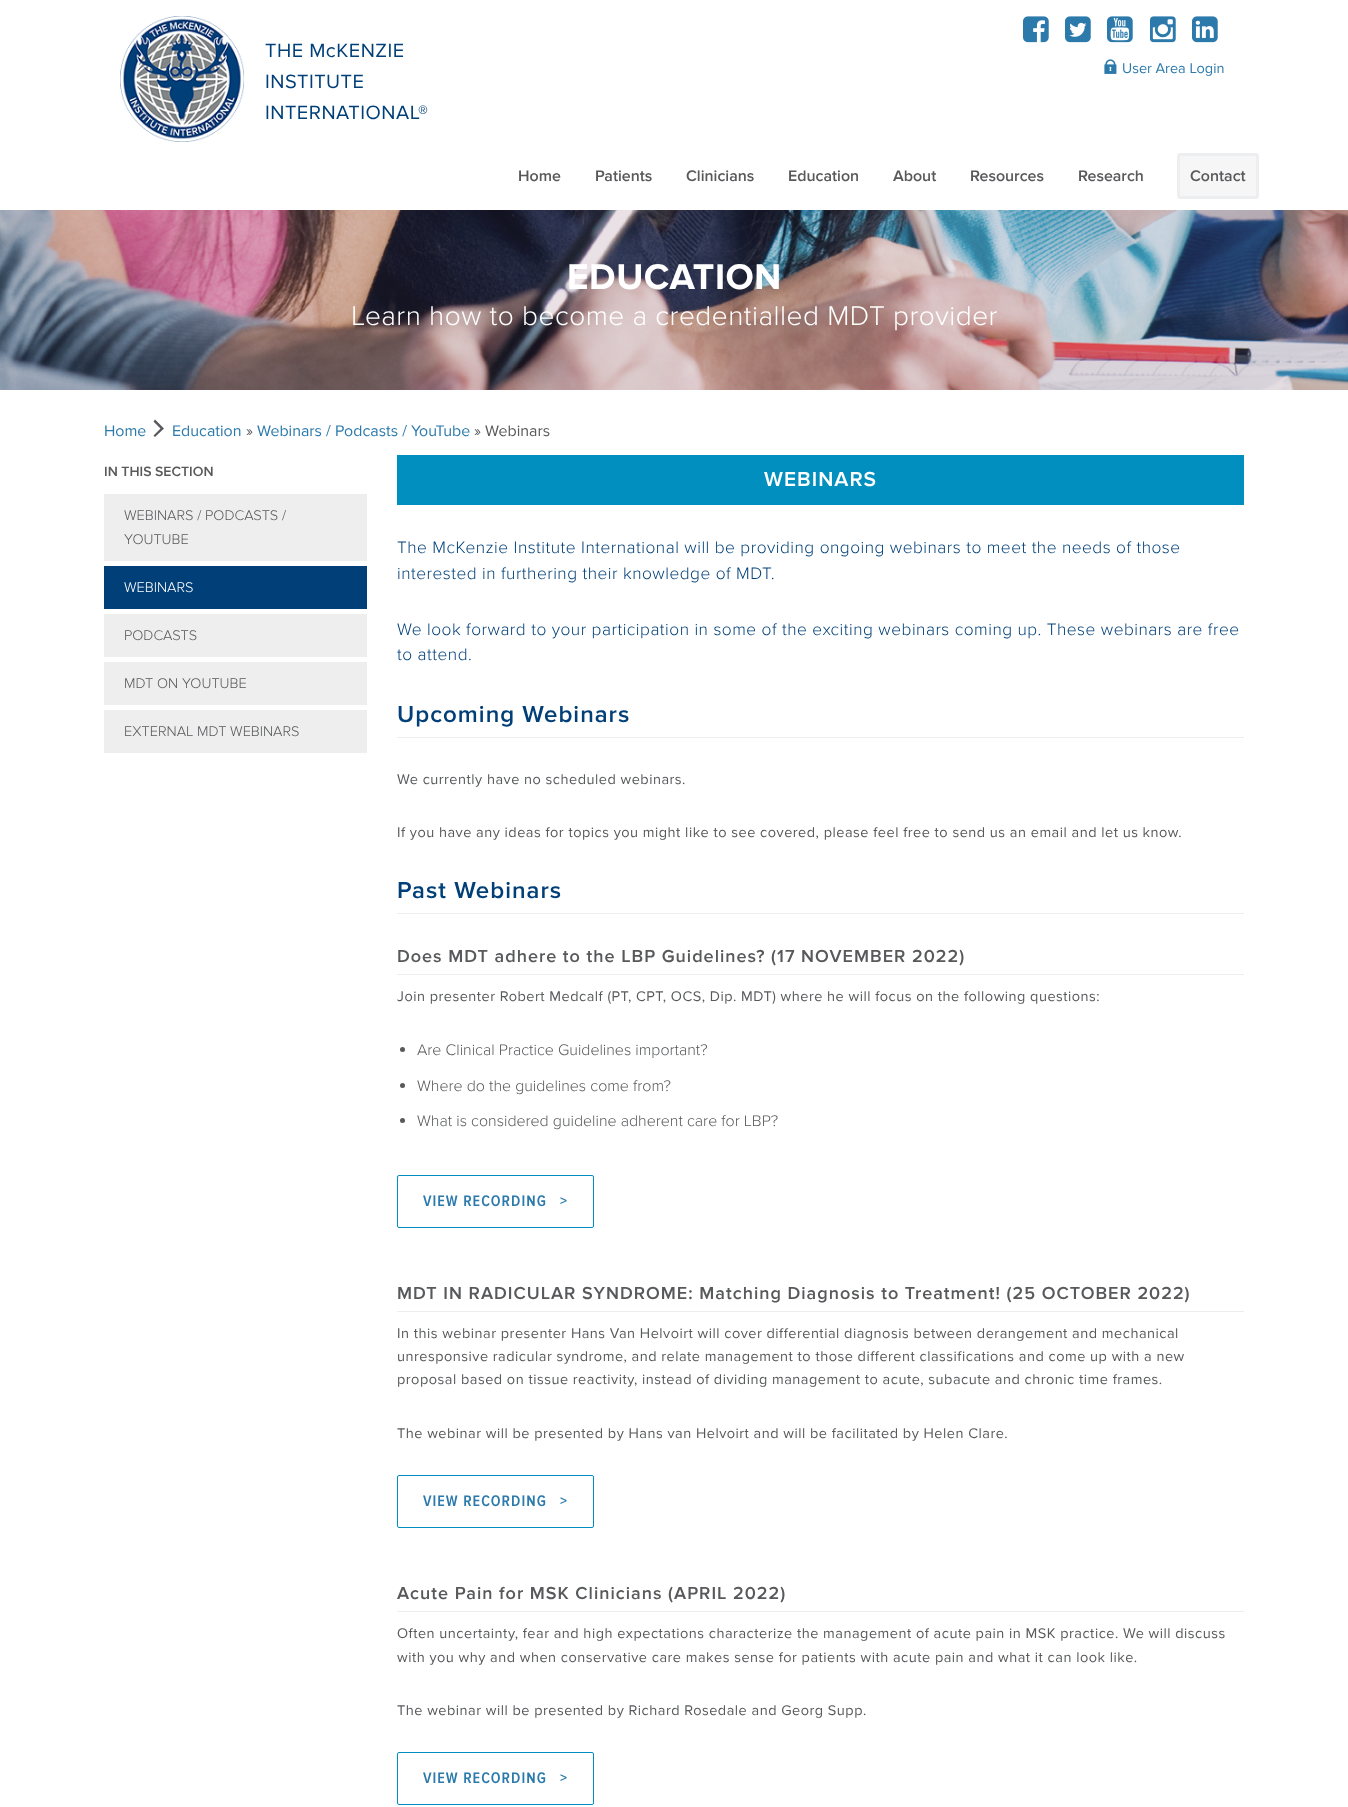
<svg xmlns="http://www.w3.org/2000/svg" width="1348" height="1807">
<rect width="100%" height="100%" fill="#fff"/>
<image x="120" y="16" width="125" height="126" href="media/1.png"/>
<text x="265" y="57" style="font-family:Proxima Nova;font-size:20px;letter-spacing:0.5px;fill:#003f77">THE McKENZIE</text>
<text x="265" y="88" style="font-family:Proxima Nova;font-size:20px;letter-spacing:0.5px;fill:#003f77">INSTITUTE</text>
<text x="265" y="119" style="font-family:Proxima Nova;font-size:20px;letter-spacing:0.5px;fill:#003f77">INTERNATIONAL®</text>
<image x="1023" y="16" width="26" height="27" href="media/2.png"/>
<image x="1065" y="16" width="26" height="27" href="media/3.png"/>
<image x="1107" y="16" width="26" height="27" href="media/4.png"/>
<image x="1150" y="16" width="26" height="27" href="media/5.png"/>
<image x="1192" y="16" width="26" height="27" href="media/6.png"/>
<image x="1104" y="59" width="13" height="15" href="media/7.png"/>
<text x="1122" y="73" style="font-family:Proxima Nova;font-size:14.5px;fill:#2c7aab">User Area Login</text>
<text x="518" y="181" style="font-family:Proxima Nova;font-size:15.95px;font-weight:600;fill:#58595b">Home</text>
<text x="595" y="181" style="font-family:Proxima Nova;font-size:15.95px;font-weight:600;fill:#58595b">Patients</text>
<text x="686" y="181" style="font-family:Proxima Nova;font-size:15.95px;font-weight:600;fill:#58595b">Clinicians</text>
<text x="788" y="181" style="font-family:Proxima Nova;font-size:15.95px;font-weight:600;fill:#58595b">Education</text>
<text x="893" y="181" style="font-family:Proxima Nova;font-size:15.95px;font-weight:600;fill:#58595b">About</text>
<text x="970" y="181" style="font-family:Proxima Nova;font-size:15.95px;font-weight:600;fill:#58595b">Resources</text>
<text x="1078" y="181" style="font-family:Proxima Nova;font-size:15.95px;font-weight:600;fill:#58595b">Research</text>
<rect x="1178.5" y="154.5" width="79" height="43" rx="1.5" fill="#f6f6f7" stroke="#edeeef" stroke-width="3"/>
<text x="1190" y="181" style="font-family:Proxima Nova;font-size:15.95px;font-weight:600;fill:#58595b">Contact</text>
<image x="0" y="210" width="1348" height="180" href="media/8.png"/>
<text x="567" y="289" style="font-family:Proxima Nova;font-size:37px;font-weight:bold;letter-spacing:0.5px;fill:#fff">EDUCATION</text>
<text x="351" y="325" style="font-family:Proxima Nova;font-size:28px;font-weight:300;letter-spacing:0.5px;fill:#fff">Learn how to become a credentialled MDT provider</text>
<text x="104" y="436" style="font-family:Proxima Nova;font-size:15.95px;fill:#2c7aab">Home</text>
<path d="M155 437l-1.5-1.5l7-7l-7-7l1.5-2l9 9z" fill="#58595b"/>
<text x="172" y="436" style="font-family:Proxima Nova;font-size:15.95px;fill:#2c7aab">Education</text>
<text x="246" y="436" style="font-family:Proxima Nova;font-size:15.95px;fill:#58595b">»</text>
<text x="257" y="436" style="font-family:Proxima Nova;font-size:15.95px;fill:#2c7aab">Webinars / Podcasts / YouTube</text>
<text x="474" y="436" style="font-family:Proxima Nova;font-size:15.95px;fill:#58595b">» Webinars</text>
<text x="104" y="476" style="font-family:Proxima Nova;font-size:14px;font-weight:600;fill:#58595b">IN THIS SECTION</text>
<rect x="104" y="494" width="263" height="67" fill="#eee"/>
<text x="124" y="520" style="font-family:Proxima Nova;font-size:14.5px;font-weight:300;fill:#58595b">WEBINARS / PODCASTS /</text>
<text x="124" y="544" style="font-family:Proxima Nova;font-size:14.5px;font-weight:300;fill:#58595b">YOUTUBE</text>
<rect x="104" y="566" width="263" height="43" fill="#003f77"/>
<text x="124" y="592" style="font-family:Proxima Nova;font-size:14.5px;font-weight:300;fill:#fff">WEBINARS</text>
<rect x="104" y="614" width="263" height="43" fill="#eee"/>
<text x="124" y="640" style="font-family:Proxima Nova;font-size:14.5px;font-weight:300;fill:#58595b">PODCASTS</text>
<rect x="104" y="662" width="263" height="43" fill="#eee"/>
<text x="124" y="688" style="font-family:Proxima Nova;font-size:14.5px;font-weight:300;fill:#58595b">MDT ON YOUTUBE</text>
<rect x="104" y="710" width="263" height="43" fill="#eee"/>
<text x="124" y="736" style="font-family:Proxima Nova;font-size:14.5px;font-weight:300;fill:#58595b">EXTERNAL MDT WEBINARS</text>
<rect x="397" y="455" width="847" height="50" fill="#008fbe"/>
<text x="764" y="486" style="font-family:Proxima Nova;font-size:21px;font-weight:600;letter-spacing:1px;fill:#fff">WEBINARS</text>
<text x="397" y="553" style="font-family:Proxima Nova;font-size:17.25px;font-weight:300;letter-spacing:0.5px;fill:#003f77">The McKenzie Institute International will be providing ongoing webinars to meet the needs of those</text>
<text x="397" y="579" style="font-family:Proxima Nova;font-size:17.25px;font-weight:300;letter-spacing:0.5px;fill:#003f77">interested in furthering their knowledge of MDT.</text>
<text x="397" y="635" style="font-family:Proxima Nova;font-size:17.25px;font-weight:300;letter-spacing:0.5px;fill:#003f77">We look forward to your participation in some of the exciting webinars coming up. These webinars are free</text>
<text x="397" y="660" style="font-family:Proxima Nova;font-size:17.25px;font-weight:300;letter-spacing:0.5px;fill:#003f77">to attend.</text>
<rect x="397" y="737" width="847" height="1" fill="#eee"/>
<text x="397" y="722" style="font-family:Proxima Nova;font-size:24px;font-weight:600;letter-spacing:1px;fill:#003f77">Upcoming Webinars</text>
<text x="397" y="784" style="font-family:Proxima Nova;font-size:14.5px;letter-spacing:0.5px;fill:#58595b">We currently have no scheduled webinars.</text>
<text x="397" y="837" style="font-family:Proxima Nova;font-size:14.5px;letter-spacing:0.5px;fill:#58595b">If you have any ideas for topics you might like to see covered, please feel free to send us an email and let us know.</text>
<rect x="397" y="913" width="847" height="1" fill="#eee"/>
<text x="397" y="898" style="font-family:Proxima Nova;font-size:24px;font-weight:600;letter-spacing:1px;fill:#003f77">Past Webinars</text>
<rect x="397" y="974" width="847" height="1" fill="#eee"/>
<text x="397" y="962" style="font-family:Proxima Nova;font-size:18px;font-weight:600;letter-spacing:1px;fill:#58595b">Does MDT adhere to the LBP Guidelines? (17 NOVEMBER 2022)</text>
<text x="397" y="1001" style="font-family:Proxima Nova;font-size:14.5px;letter-spacing:0.5px;fill:#58595b">Join presenter Robert Medcalf (PT, CPT, OCS, Dip. MDT) where he will focus on the following questions:</text>
<circle cx="402.5" cy="1049.5" r="2.5" fill="#58595b"/>
<text x="417" y="1055" style="font-family:Proxima Nova;font-size:15.95px;font-weight:300;fill:#58595b">Are Clinical Practice Guidelines important?</text>
<circle cx="402.5" cy="1085.5" r="2.5" fill="#58595b"/>
<text x="417" y="1091" style="font-family:Proxima Nova;font-size:15.95px;font-weight:300;fill:#58595b">Where do the guidelines come from?</text>
<circle cx="402.5" cy="1120.5" r="2.5" fill="#58595b"/>
<text x="417" y="1126" style="font-family:Proxima Nova;font-size:15.95px;font-weight:300;fill:#58595b">What is considered guideline adherent care for LBP?</text>
<rect x="397.5" y="1175.5" width="196" height="52" rx="1.5" fill="none" stroke="#008fbe"/>
<text x="423" y="1206" style="font-family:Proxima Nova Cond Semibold;font-size:15.95px;font-weight:600;letter-spacing:1px;fill:#2c7aab" xml:space="preserve">VIEW RECORDING   &gt;</text>
<rect x="397" y="1311" width="847" height="1" fill="#eee"/>
<text x="397" y="1299" style="font-family:Proxima Nova;font-size:18px;font-weight:600;letter-spacing:1px;fill:#58595b">MDT IN RADICULAR SYNDROME: Matching Diagnosis to Treatment! (25 OCTOBER 2022)</text>
<text x="397" y="1338" style="font-family:Proxima Nova;font-size:14.5px;letter-spacing:0.5px;fill:#58595b">In this webinar presenter Hans Van Helvoirt will cover differential diagnosis between derangement and mechanical</text>
<text x="397" y="1361" style="font-family:Proxima Nova;font-size:14.5px;letter-spacing:0.5px;fill:#58595b">unresponsive radicular syndrome, and relate management to those different classifications and come up with a new</text>
<text x="397" y="1384" style="font-family:Proxima Nova;font-size:14.5px;letter-spacing:0.5px;fill:#58595b">proposal based on tissue reactivity, instead of dividing management to acute, subacute and chronic time frames.</text>
<text x="397" y="1438" style="font-family:Proxima Nova;font-size:14.5px;letter-spacing:0.5px;fill:#58595b">The webinar will be presented by Hans van Helvoirt and will be facilitated by Helen Clare.</text>
<rect x="397.5" y="1475.5" width="196" height="52" rx="1.5" fill="none" stroke="#008fbe"/>
<text x="423" y="1506" style="font-family:Proxima Nova Cond Semibold;font-size:15.95px;font-weight:600;letter-spacing:1px;fill:#2c7aab" xml:space="preserve">VIEW RECORDING   &gt;</text>
<rect x="397" y="1611" width="847" height="1" fill="#eee"/>
<text x="397" y="1599" style="font-family:Proxima Nova;font-size:18px;font-weight:600;letter-spacing:1px;fill:#58595b">Acute Pain for MSK Clinicians (APRIL 2022)</text>
<text x="397" y="1638" style="font-family:Proxima Nova;font-size:14.5px;letter-spacing:0.5px;fill:#58595b">Often uncertainty, fear and high expectations characterize the management of acute pain in MSK practice. We will discuss</text>
<text x="397" y="1662" style="font-family:Proxima Nova;font-size:14.5px;letter-spacing:0.5px;fill:#58595b">with you why and when conservative care makes sense for patients with acute pain and what it can look like.</text>
<text x="397" y="1715" style="font-family:Proxima Nova;font-size:14.5px;letter-spacing:0.5px;fill:#58595b">The webinar will be presented by Richard Rosedale and Georg Supp.</text>
<rect x="397.5" y="1752.5" width="196" height="52" rx="1.5" fill="none" stroke="#008fbe"/>
<text x="423" y="1783" style="font-family:Proxima Nova Cond Semibold;font-size:15.95px;font-weight:600;letter-spacing:1px;fill:#2c7aab" xml:space="preserve">VIEW RECORDING   &gt;</text>
</svg>
